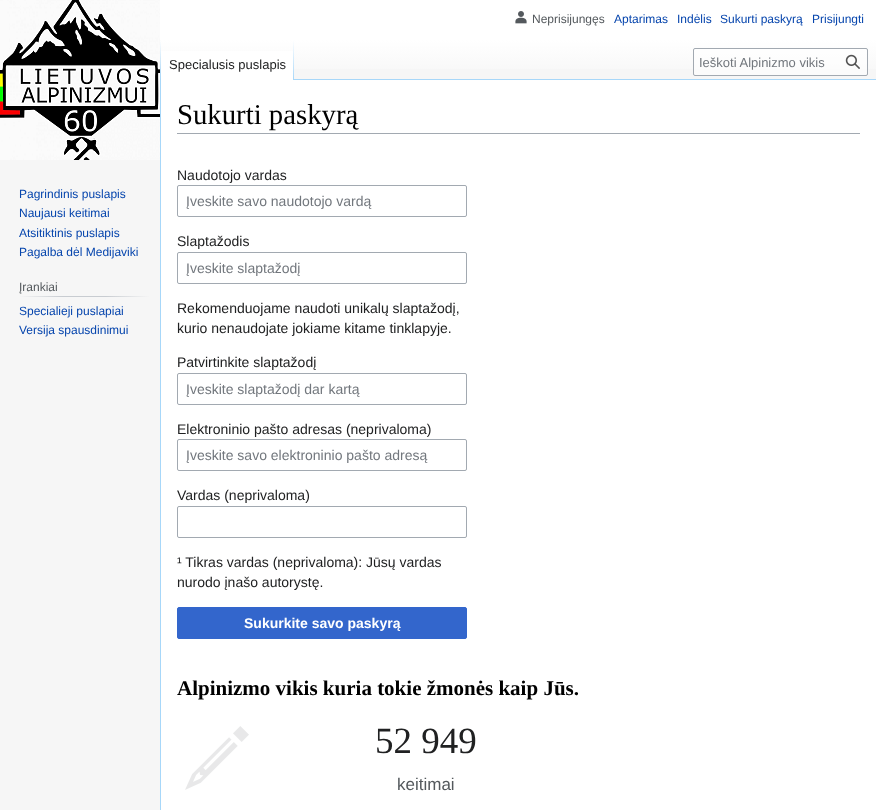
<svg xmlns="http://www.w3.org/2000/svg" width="876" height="810">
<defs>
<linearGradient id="g1" gradientUnits="userSpaceOnUse" x1="438" y1="0" x2="438" y2="80"><stop offset="0.5" stop-color="#fff"/><stop offset="1" stop-color="#f6f6f6"/></linearGradient>
<linearGradient id="g2" gradientUnits="userSpaceOnUse" x1="161" y1="40" x2="161" y2="80"><stop offset="0" stop-color="#a7d7f9" stop-opacity="0"/><stop offset="1" stop-color="#a7d7f9"/></linearGradient>
<linearGradient id="g3" gradientUnits="userSpaceOnUse" x1="294" y1="40" x2="294" y2="80"><stop offset="0" stop-color="#fff"/><stop offset="1" stop-color="#a7d7f9"/></linearGradient>
<linearGradient id="g4" gradientUnits="userSpaceOnUse" x1="19" y1="297" x2="150" y2="297"><stop offset="0" stop-color="#f6f6f6"/><stop offset="0.33" stop-color="#c8ccd1"/><stop offset="0.66" stop-color="#c8ccd1"/><stop offset="1" stop-color="#f6f6f6"/></linearGradient>
</defs>
<rect width="100%" height="100%" fill="#f6f6f6"/>
<rect x="160" width="716" height="69" fill="url(#g1)"/>
<image x="515" y="11" width="12" height="13" href="media/1.png"/>
<text x="532" y="23" style="font-family:Liberation Sans;font-size:12px;fill:#54595d">Neprisijungęs</text>
<text x="614" y="23" style="font-family:Liberation Sans;font-size:12px;fill:#0645ad">Aptarimas</text>
<text x="677" y="23" style="font-family:Liberation Sans;font-size:12px;fill:#0645ad">Indėlis</text>
<text x="720" y="23" style="font-family:Liberation Sans;font-size:12px;fill:#0645ad">Sukurti paskyrą</text>
<text x="812" y="23" style="font-family:Liberation Sans;font-size:12px;fill:#0645ad">Prisijungti</text>
<rect x="160" y="79" width="1" height="731" fill="#a7d7f9"/>
<rect x="160" y="40" width="1" height="40" fill="url(#g2)"/>
<rect x="161" y="51" width="132" height="29" fill="#fff"/>
<rect x="293" y="40" width="1" height="40" fill="url(#g3)"/>
<text x="169" y="69" style="font-family:Liberation Sans;font-size:13px;fill:#202122">Specialusis puslapis</text>
<rect x="693.5" y="48.5" width="174" height="27" rx="1.5" fill="#ffffff80" stroke="#a2a9b1"/>
<text x="699" y="67" style="font-family:Liberation Sans;font-size:13px;fill:#72777d">Ieškoti Alpinizmo vikis</text>
<image x="845" y="54" width="15" height="15" href="media/2.png"/>
<image x="0" y="0" width="160" height="160" href="media/3.png"/>
<text x="19" y="198" style="font-family:Liberation Sans;font-size:12px;fill:#0645ad">Pagrindinis puslapis</text>
<text x="19" y="217" style="font-family:Liberation Sans;font-size:12px;fill:#0645ad">Naujausi keitimai</text>
<text x="19" y="237" style="font-family:Liberation Sans;font-size:12px;fill:#0645ad">Atsitiktinis puslapis</text>
<text x="19" y="256" style="font-family:Liberation Sans;font-size:12px;fill:#0645ad">Pagalba dėl Medijaviki</text>
<rect x="19" y="296" width="131" height="1" fill="url(#g4)"/>
<text x="19" y="291" style="font-family:Liberation Sans;font-size:12px;fill:#54595d">Įrankiai</text>
<text x="19" y="315" style="font-family:Liberation Sans;font-size:12px;fill:#0645ad">Specialieji puslapiai</text>
<text x="19" y="334" style="font-family:Liberation Sans;font-size:12px;fill:#0645ad">Versija spausdinimui</text>
<rect x="161" y="80" width="715" height="730" fill="#fff"/>
<rect x="294" y="79" width="582" height="1" fill="#a7d7f9"/>
<rect x="177" y="133" width="683" height="1" fill="#a2a9b1"/>
<text x="177" y="124" style="font-family:Liberation Serif;font-size:28.75px;fill:#000">Sukurti paskyrą</text>
<text x="177" y="180" style="font-family:Liberation Sans;font-size:14px;fill:#202122">Naudotojo vardas</text>
<rect x="177.5" y="185.5" width="289" height="31" rx="1.5" fill="none" stroke="#a2a9b1"/>
<text x="186" y="206" style="font-family:Liberation Sans;font-size:14px;fill:#72777d">Įveskite savo naudotojo vardą</text>
<text x="177" y="246" style="font-family:Liberation Sans;font-size:14px;fill:#202122">Slaptažodis</text>
<rect x="177.5" y="252.5" width="289" height="31" rx="1.5" fill="none" stroke="#a2a9b1"/>
<text x="186" y="273" style="font-family:Liberation Sans;font-size:14px;fill:#72777d">Įveskite slaptažodį</text>
<text x="177" y="313" style="font-family:Liberation Sans;font-size:14px;fill:#202122">Rekomenduojame naudoti unikalų slaptažodį,</text>
<text x="177" y="333" style="font-family:Liberation Sans;font-size:14px;fill:#202122">kurio nenaudojate jokiame kitame tinklapyje.</text>
<text x="177" y="367" style="font-family:Liberation Sans;font-size:14px;fill:#202122">Patvirtinkite slaptažodį</text>
<rect x="177.5" y="373.5" width="289" height="31" rx="1.5" fill="none" stroke="#a2a9b1"/>
<text x="186" y="394" style="font-family:Liberation Sans;font-size:14px;fill:#72777d">Įveskite slaptažodį dar kartą</text>
<text x="177" y="434" style="font-family:Liberation Sans;font-size:14px;fill:#202122">Elektroninio pašto adresas (neprivaloma)</text>
<rect x="177.5" y="439.5" width="289" height="31" rx="1.5" fill="none" stroke="#a2a9b1"/>
<text x="186" y="460" style="font-family:Liberation Sans;font-size:14px;fill:#72777d">Įveskite savo elektroninio pašto adresą</text>
<text x="177" y="500" style="font-family:Liberation Sans;font-size:14px;fill:#202122">Vardas (neprivaloma)</text>
<rect x="177.5" y="506.5" width="289" height="31" rx="1.5" fill="none" stroke="#a2a9b1"/>
<text x="177" y="567" style="font-family:Liberation Sans;font-size:14px;fill:#202122">¹ Tikras vardas (neprivaloma): Jūsų vardas</text>
<text x="177" y="587" style="font-family:Liberation Sans;font-size:14px;fill:#202122">nurodo įnašo autorystę.</text>
<rect x="177.5" y="607.5" width="289" height="31" rx="1.5" fill="#36c" stroke="#36c"/>
<text x="244" y="628" style="font-family:Liberation Sans;font-size:14px;font-weight:bold;fill:#fff">Sukurkite savo paskyrą</text>
<text x="177" y="695" style="font-family:Liberation Serif;font-size:21px;font-weight:bold;fill:#000">Alpinizmo vikis kuria tokie žmonės kaip Jūs.</text>
<image x="185" y="726" width="64" height="64" href="media/4.png"/>
<text x="375" y="753" style="font-family:Liberation Serif;font-size:37px;fill:#202122">52 949</text>
<text x="397" y="790" style="font-family:Liberation Sans;font-size:17px;fill:#54595d">keitimai</text>
</svg>
